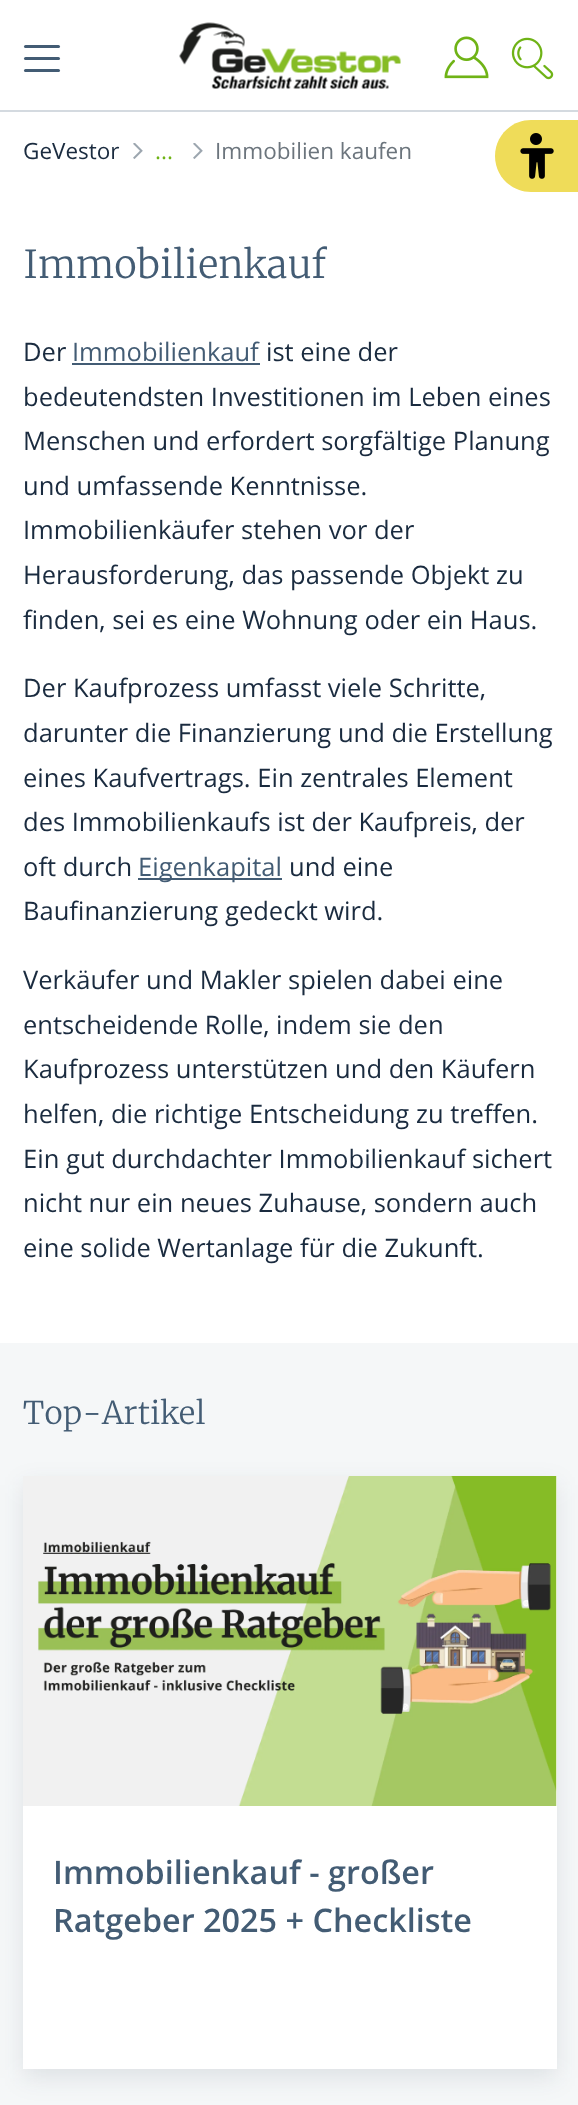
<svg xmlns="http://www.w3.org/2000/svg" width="578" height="2105">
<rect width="100%" height="100%" fill="#fff"/>
<rect y="110" width="578" height="2" fill="#d4dae0"/>
<rect x="24" y="57" width="36" height="3" rx="1.5" fill="#435c74"/>
<rect x="24" y="45" width="36" height="3" rx="1.5" fill="#435c74"/>
<rect x="24" y="69" width="36" height="3" rx="1.5" fill="#435c74"/>
<image x="179" y="22" width="222" height="67" href="media/1.png"/>
<image x="444" y="36" width="45" height="43" href="media/2.png"/>
<image x="511" y="37" width="43" height="43" href="media/3.png"/>
<path d="M531 120h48v72h-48c-20 0-36-16-36-36c0-20 16-36 36-36z" fill="#efdc59"/>
<image x="520" y="133" width="34" height="46" href="media/4.png"/>
<text x="23" y="159" style="font-family:Open Sans;font-size:22.5px;fill:#1a2b3f">GeVestor</text>
<image x="133" y="143" width="10" height="16" href="media/5.png"/>
<text x="155" y="159" style="font-family:Open Sans;font-size:22.5px;fill:#6fb316">...</text>
<image x="193" y="143" width="10" height="16" href="media/5.png"/>
<text x="215" y="159" style="font-family:Open Sans;font-size:22.5px;fill:#6c757d">Immobilien kaufen</text>
<text x="23" y="278" style="font-family:Merriweather;font-size:38.5px;font-weight:300;fill:#435c74">Immobilienkauf</text>
<text x="23" y="361" style="font-family:Open Sans;font-size:25.5px;fill:#1a2b3f">Der</text>
<text x="72" y="361" style="font-family:Open Sans;font-size:25.5px;fill:#435c74">Immobilienkauf</text>
<rect x="72" y="363" width="188" height="2" fill="#435c74"/>
<text x="266" y="361" style="font-family:Open Sans;font-size:25.5px;fill:#1a2b3f">ist eine der</text>
<text x="23" y="406" style="font-family:Open Sans;font-size:25.5px;fill:#1a2b3f">bedeutendsten Investitionen im Leben eines</text>
<text x="23" y="450" style="font-family:Open Sans;font-size:25.5px;fill:#1a2b3f">Menschen und erfordert sorgfältige Planung</text>
<text x="23" y="495" style="font-family:Open Sans;font-size:25.5px;fill:#1a2b3f">und umfassende Kenntnisse.</text>
<text x="23" y="539" style="font-family:Open Sans;font-size:25.5px;fill:#1a2b3f">Immobilienkäufer stehen vor der</text>
<text x="23" y="584" style="font-family:Open Sans;font-size:25.5px;fill:#1a2b3f">Herausforderung, das passende Objekt zu</text>
<text x="23" y="629" style="font-family:Open Sans;font-size:25.5px;fill:#1a2b3f">finden, sei es eine Wohnung oder ein Haus.</text>
<text x="23" y="697" style="font-family:Open Sans;font-size:25.5px;fill:#1a2b3f">Der Kaufprozess umfasst viele Schritte,</text>
<text x="23" y="742" style="font-family:Open Sans;font-size:25.5px;fill:#1a2b3f">darunter die Finanzierung und die Erstellung</text>
<text x="23" y="787" style="font-family:Open Sans;font-size:25.5px;fill:#1a2b3f">eines Kaufvertrags. Ein zentrales Element</text>
<text x="23" y="831" style="font-family:Open Sans;font-size:25.5px;fill:#1a2b3f">des Immobilienkaufs ist der Kaufpreis, der</text>
<text x="23" y="876" style="font-family:Open Sans;font-size:25.5px;fill:#1a2b3f">oft durch</text>
<rect x="138" y="878" width="144" height="2" fill="#435c74"/>
<text x="138" y="876" style="font-family:Open Sans;font-size:25.5px;fill:#435c74">Eigenkapital</text>
<text x="289" y="876" style="font-family:Open Sans;font-size:25.5px;fill:#1a2b3f">und eine</text>
<text x="23" y="920" style="font-family:Open Sans;font-size:25.5px;fill:#1a2b3f">Baufinanzierung gedeckt wird.</text>
<text x="23" y="989" style="font-family:Open Sans;font-size:25.5px;fill:#1a2b3f">Verkäufer und Makler spielen dabei eine</text>
<text x="23" y="1034" style="font-family:Open Sans;font-size:25.5px;fill:#1a2b3f">entscheidende Rolle, indem sie den</text>
<text x="23" y="1078" style="font-family:Open Sans;font-size:25.5px;fill:#1a2b3f">Kaufprozess unterstützen und den Käufern</text>
<text x="23" y="1123" style="font-family:Open Sans;font-size:25.5px;fill:#1a2b3f">helfen, die richtige Entscheidung zu treffen.</text>
<text x="23" y="1168" style="font-family:Open Sans;font-size:25.5px;fill:#1a2b3f">Ein gut durchdachter Immobilienkauf sichert</text>
<text x="23" y="1212" style="font-family:Open Sans;font-size:25.5px;fill:#1a2b3f">nicht nur ein neues Zuhause, sondern auch</text>
<text x="23" y="1257" style="font-family:Open Sans;font-size:25.5px;fill:#1a2b3f">eine solide Wertanlage für die Zukunft.</text>
<rect y="1343" width="578" height="762" fill="#f5f7f8"/>
<text x="23" y="1424" style="font-family:Merriweather;font-size:31.25px;font-weight:300;fill:#435c74">Top-Artikel</text>
<rect x="23" y="1485" width="534" height="593" fill="#16233a1a" filter="blur(12px)"/>
<rect x="23" y="1476" width="534" height="593" fill="#fff"/>
<image x="23" y="1476" width="534" height="330" href="media/6.png"/>
<text x="53" y="1884" style="font-family:Open Sans;font-size:32.4px;font-weight:600;fill:#435c74">Immobilienkauf - großer</text>
<text x="53" y="1932" style="font-family:Open Sans;font-size:32.4px;font-weight:600;fill:#435c74">Ratgeber 2025 + Checkliste</text>
</svg>
